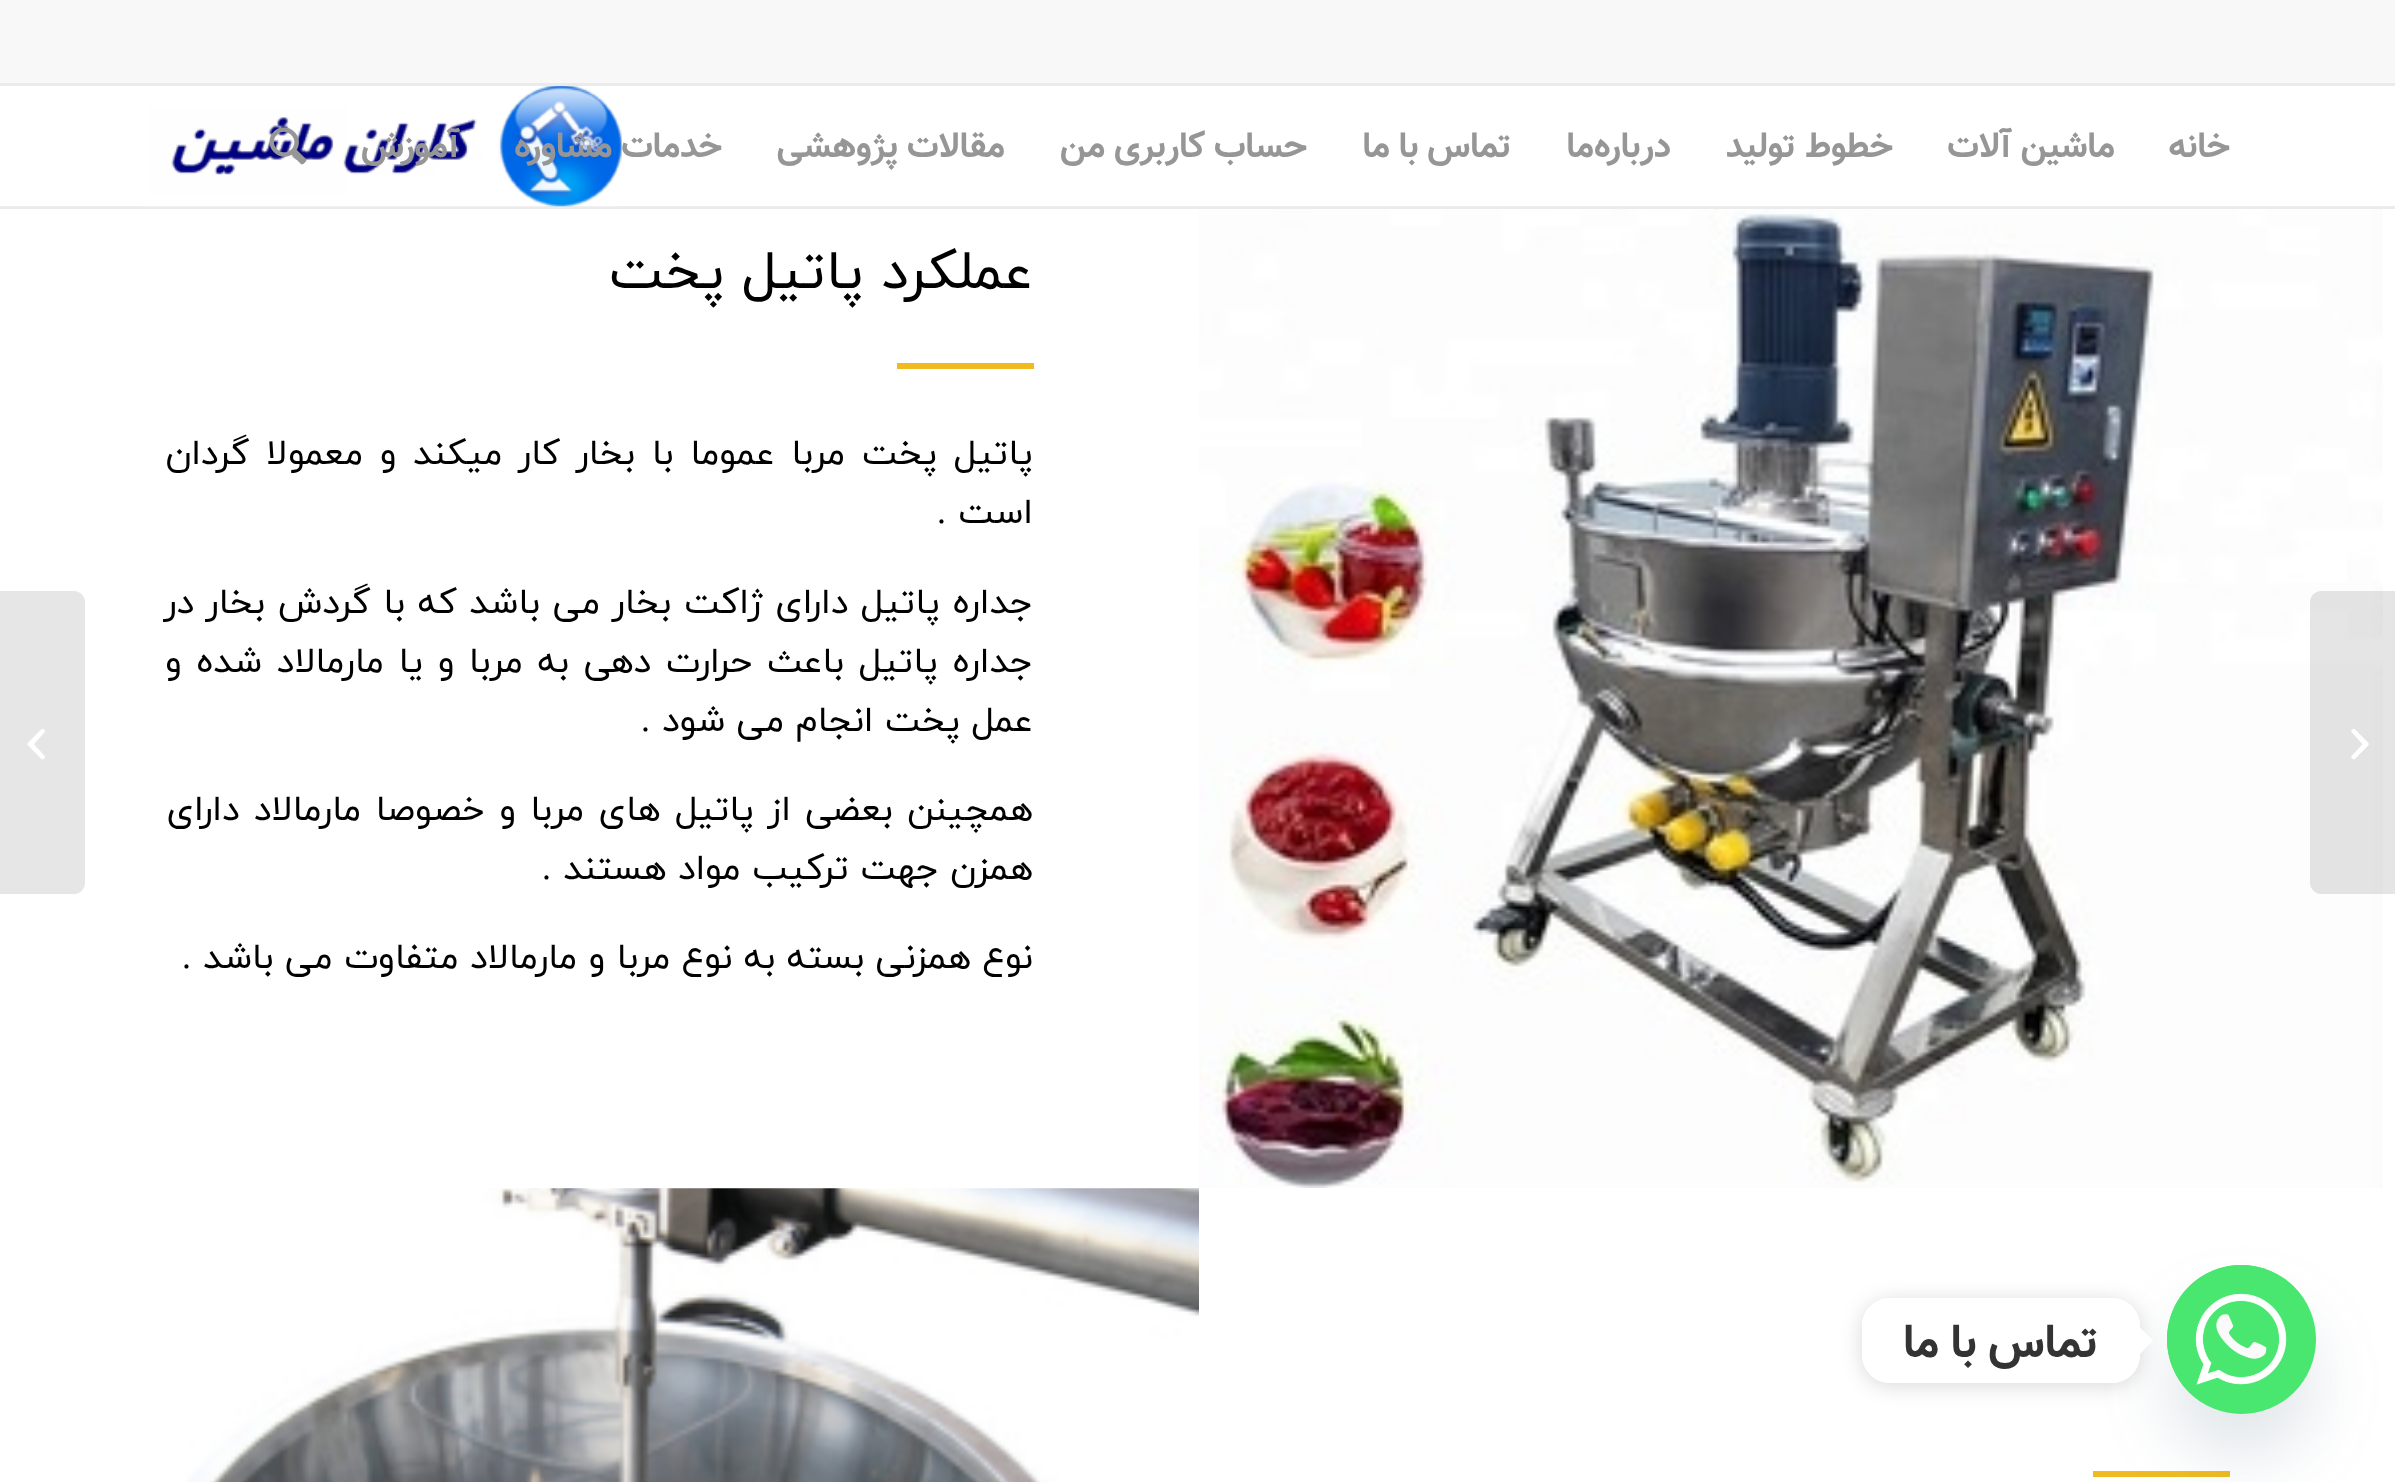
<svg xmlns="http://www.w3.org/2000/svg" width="2395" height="1482">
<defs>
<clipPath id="clip1"><path d="M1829 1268h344v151h-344zm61 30h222c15.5 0 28 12.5 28 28v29c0 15.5-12.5 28-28 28h-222c-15.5 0-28-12.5-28-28v-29c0-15.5 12.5-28 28-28z" clip-rule="evenodd"/></clipPath>
</defs>
<rect width="100%" height="100%" fill="#fff"/>
<rect width="2395" height="83" fill="#f8f8f8"/>
<rect y="83" width="2395" height="3" fill="#ebebeb"/>
<rect y="206" width="2395" height="3" fill="#ebebeb"/>
<image x="137" y="86" width="485" height="121" href="media/1.png"/>
<text x="2230" y="157" style="font-family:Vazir;font-size:35.75px;font-weight:bold;direction:rtl;fill:#969696">خانه</text>
<text x="2115" y="157" style="font-family:Vazir;font-size:35.75px;font-weight:bold;direction:rtl;fill:#969696">ماشین آلات</text>
<text x="1893" y="157" style="font-family:Vazir;font-size:35.75px;font-weight:bold;direction:rtl;fill:#969696">خطوط تولید</text>
<text x="1671" y="157" style="font-family:Vazir;font-size:35.75px;font-weight:bold;direction:rtl;fill:#969696">درباره‌ما</text>
<text x="1511" y="157" word-spacing="-1" style="font-family:Vazir;font-size:35.75px;font-weight:bold;direction:rtl;fill:#969696">تماس با ما</text>
<text x="1307" y="157" word-spacing="-1" style="font-family:Vazir;font-size:35.75px;font-weight:bold;direction:rtl;fill:#969696">حساب کاربری من</text>
<text x="1005" y="157" word-spacing="-1" style="font-family:Vazir;font-size:35.75px;font-weight:bold;direction:rtl;fill:#969696">مقالات پژوهشی</text>
<text x="722" y="157" word-spacing="-1" style="font-family:Vazir;font-size:35.75px;font-weight:bold;direction:rtl;fill:#969696">خدمات مشاوره</text>
<text x="459" y="157" style="font-family:Vazir;font-size:35.75px;font-weight:bold;direction:rtl;fill:#969696">آموزش</text>
<image x="269" y="127" width="38" height="38" href="media/2.png"/>
<image x="1199" y="209" width="1184" height="979" href="media/4.png"/>
<path d="M2321 591h74v303h-74c-6 0-11-5-11-11v-281c0-6 5-11 11-11z" fill="#0000001a"/>
<image x="2351" y="728" width="18" height="32" href="media/3.png"/>
<text x="1033" y="288" style="font-family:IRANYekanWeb;font-size:55px;direction:rtl;fill:#000">عملکرد پاتیل پخت</text>
<rect x="897" y="363" width="137" height="6" fill="#efbb20"/>
<text x="1033" y="464" word-spacing="5.25" style="font-family:IRANYekanWeb;font-size:35.75px;direction:rtl;fill:#000">پاتیل پخت مربا عموما با بخار کار میکند و معمولا گردان</text>
<text x="1033" y="523" style="font-family:IRANYekanWeb;font-size:35.75px;direction:rtl;fill:#000">است</text>
<text x="946" y="523" style="font-family:Liberation Serif;font-size:35.75px;direction:rtl;fill:#000">.</text>
<text x="1033" y="613" word-spacing="1.25" style="font-family:IRANYekanWeb;font-size:35.75px;direction:rtl;fill:#000">جداره پاتیل دارای ژاکت بخار می باشد که با گردش بخار در</text>
<text x="1033" y="672" word-spacing="3.25" style="font-family:IRANYekanWeb;font-size:35.75px;direction:rtl;fill:#000">جداره پاتیل باعث حرارت دهی به مربا و یا مارمالاد شده و</text>
<text x="1033" y="731" style="font-family:IRANYekanWeb;font-size:35.75px;direction:rtl;fill:#000">عمل پخت انجام می شود</text>
<text x="650" y="731" style="font-family:Liberation Serif;font-size:35.75px;direction:rtl;fill:#000">.</text>
<text x="1033" y="820" word-spacing="3" style="font-family:IRANYekanWeb;font-size:35.75px;direction:rtl;fill:#000">همچینن بعضی از پاتیل های مربا و خصوصا مارمالاد دارای</text>
<text x="1033" y="879" style="font-family:IRANYekanWeb;font-size:35.75px;direction:rtl;fill:#000">همزن جهت ترکیب مواد هستند</text>
<text x="551" y="879" style="font-family:Liberation Serif;font-size:35.75px;direction:rtl;fill:#000">.</text>
<text x="1033" y="968" style="font-family:IRANYekanWeb;font-size:35.75px;direction:rtl;fill:#000">نوع همزنی بسته به نوع مربا و مارمالاد متفاوت می باشد</text>
<text x="191" y="968" style="font-family:Liberation Serif;font-size:35.75px;direction:rtl;fill:#000">.</text>
<rect x="2093" y="1471" width="137" height="6" fill="#efbb20"/>
<image x="186" y="1188" width="1013" height="294" href="media/5.png"/>
<path d="M0 591h74c6 0 11 5 11 11v281c0 6-5 11-11 11h-74z" fill="#e6e6e6"/>
<image x="27" y="728" width="18" height="32" href="media/6.png"/>
<rect x="2167" y="1309" width="149" height="149" rx="74.5" fill="#49687e29" filter="blur(33px)"/>
<circle cx="2241.5" cy="1339.5" r="74.5" fill="#49e670"/>
<image x="2167" y="1265" width="134" height="134" href="media/7.png"/>
<g clip-path="url(#clip1)">
<rect x="1862" y="1301" width="278" height="85" rx="28" fill="#00000026" filter="blur(10.5px)"/>
</g>
<rect x="1862" y="1298" width="278" height="85" rx="28" fill="#fff"/>
<path d="M2139.5 1354.5v-27.5l13.5 13.5z" fill="#fff"/>
<text x="2098" y="1357" word-spacing="-1" style="font-family:Vazir;font-size:46.75px;font-weight:bold;direction:rtl;fill:#333">تماس با ما</text>
</svg>
